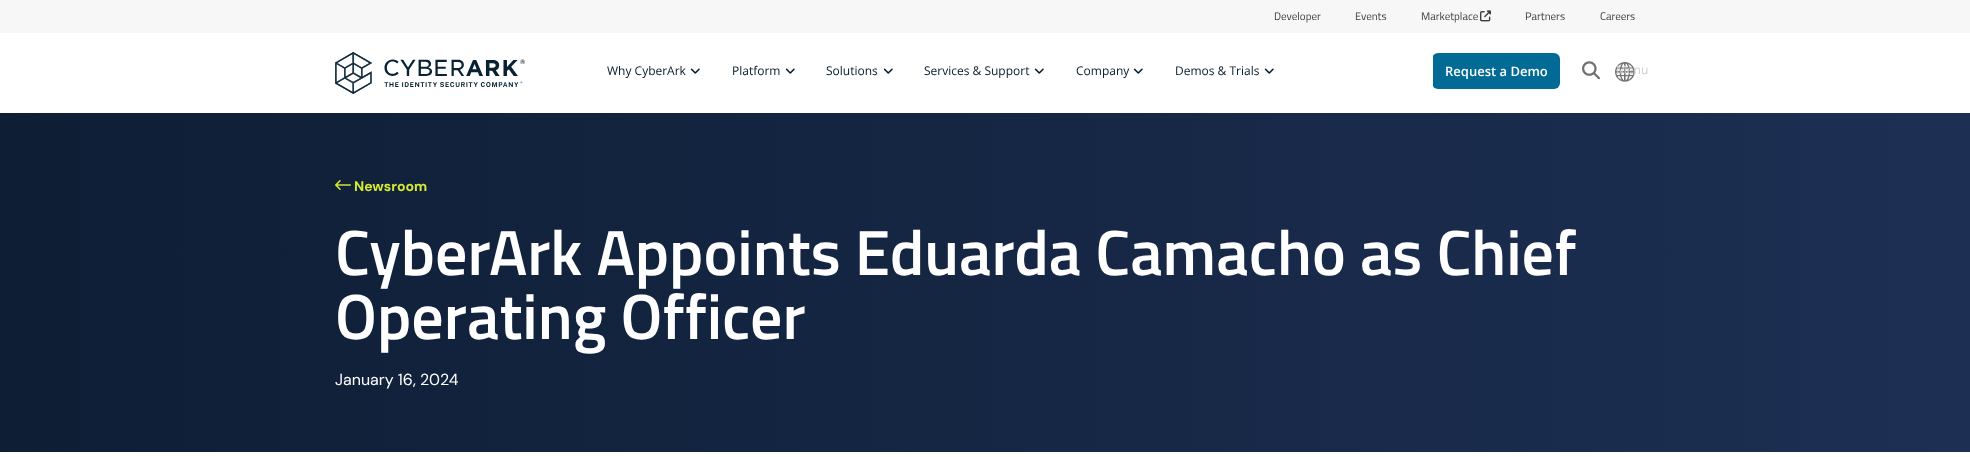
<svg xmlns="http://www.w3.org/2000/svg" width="1970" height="457">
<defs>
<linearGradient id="g1" gradientUnits="userSpaceOnUse" x1="0" y1="283" x2="1970" y2="282"><stop offset="0" stop-color="#0e1e35"/><stop offset="1" stop-color="#1d2f53"/></linearGradient>
</defs>
<rect width="100%" height="100%" fill="#fff"/>
<rect width="1970" height="33" fill="#f7f7f7"/>
<text x="1274" y="20" style="font-family:Titillium Web;font-size:11px;fill:#3d3d3d">Developer</text>
<text x="1355" y="20" style="font-family:Titillium Web;font-size:11px;fill:#3d3d3d">Events</text>
<text x="1421" y="20" style="font-family:Titillium Web;font-size:11px;fill:#3d3d3d">Marketplace</text>
<image x="1480" y="10" width="11" height="12" href="media/1.png"/>
<text x="1525" y="20" style="font-family:Titillium Web;font-size:11px;fill:#3d3d3d">Partners</text>
<text x="1600" y="20" style="font-family:Titillium Web;font-size:11px;fill:#3d3d3d">Careers</text>
<image x="335" y="52" width="190" height="42" href="media/2.png"/>
<text x="607" y="75" style="font-family:Open Sans;font-size:12px;fill:#061b2b">Why CyberArk</text>
<image x="690" y="68" width="10" height="6" href="media/3.png"/>
<text x="732" y="75" style="font-family:Open Sans;font-size:12px;fill:#061b2b">Platform</text>
<image x="785" y="68" width="10" height="6" href="media/3.png"/>
<text x="826" y="75" style="font-family:Open Sans;font-size:12px;fill:#061b2b">Solutions</text>
<image x="883" y="68" width="10" height="6" href="media/3.png"/>
<text x="924" y="75" style="font-family:Open Sans;font-size:12px;fill:#061b2b">Services &amp; Support</text>
<image x="1034" y="68" width="10" height="6" href="media/3.png"/>
<text x="1076" y="75" style="font-family:Open Sans;font-size:12px;fill:#061b2b">Company</text>
<image x="1133" y="68" width="10" height="6" href="media/3.png"/>
<text x="1175" y="75" style="font-family:Open Sans;font-size:12px;fill:#061b2b">Demos &amp; Trials</text>
<image x="1264" y="68" width="10" height="6" href="media/3.png"/>
<rect x="1432" y="53" width="128" height="36" rx="6" fill="#026b95"/>
<rect x="1432" y="56" width="1" height="30" fill="#fff"/>
<text x="1445" y="76" style="font-family:Open Sans;font-size:13px;font-weight:600;fill:#fff">Request a Demo</text>
<image x="1582" y="61" width="18" height="19" href="media/4.png"/>
<image x="1615" y="61" width="20" height="21" href="media/5.png"/>
<text x="1616" y="74" style="font-family:Open Sans;font-size:12px;fill:#cecece">Menu</text>
<rect y="113" width="1970" height="339" fill="url(#g1)"/>
<image x="335" y="180" width="16" height="10" href="media/6.png"/>
<text x="354" y="191" style="font-family:DM Sans;font-size:14px;font-weight:bold;fill:#d4eb33">Newsroom</text>
<text x="335" y="275" style="font-family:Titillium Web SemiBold;font-size:64px;font-weight:600;fill:#fff">CyberArk Appoints Eduarda Camacho as Chief</text>
<text x="335" y="339" style="font-family:Titillium Web SemiBold;font-size:64px;font-weight:600;fill:#fff">Operating Officer</text>
<text x="335" y="385" style="font-family:DM Sans;font-size:16px;fill:#fff">January 16, 2024</text>
</svg>
